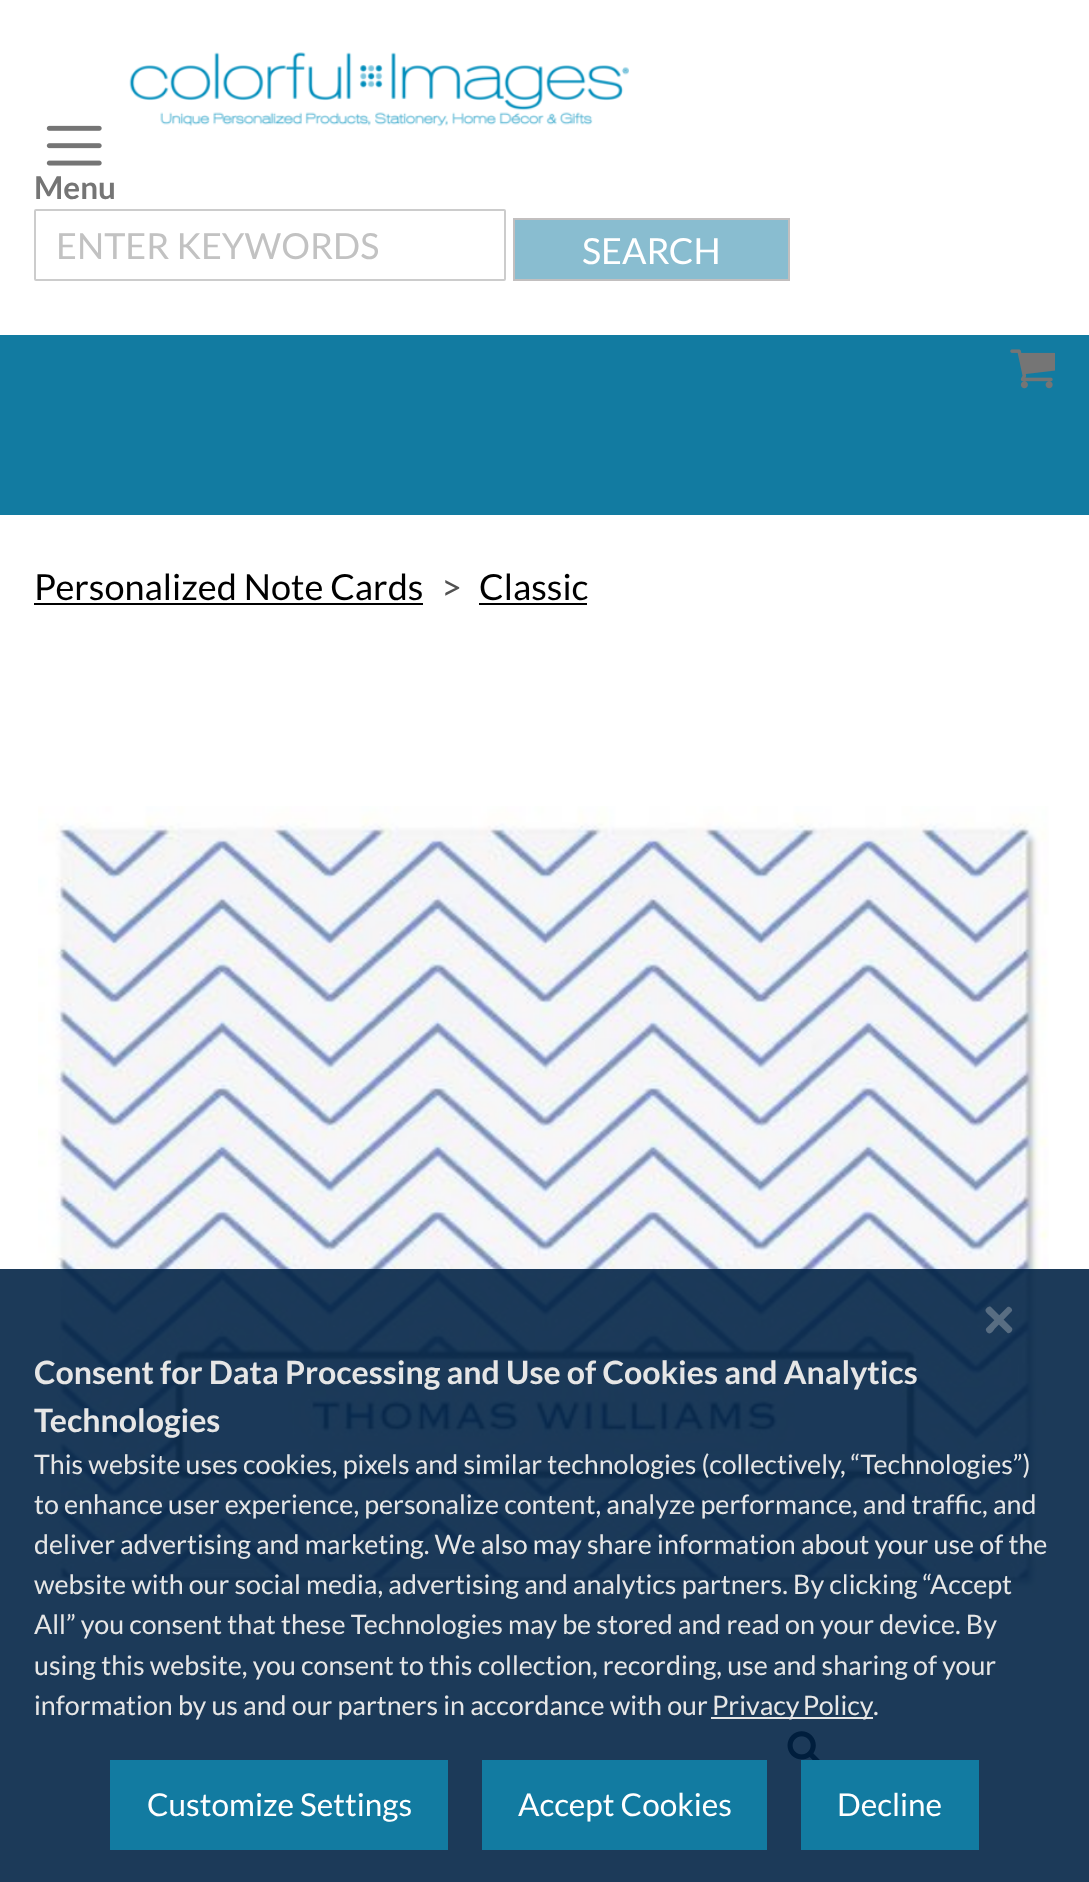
<svg xmlns="http://www.w3.org/2000/svg" width="1089" height="1882">
<rect width="100%" height="100%" fill="#fff"/>
<image x="129" y="52" width="500" height="75" href="media/1.png"/>
<image x="46" y="125" width="56" height="41" href="media/2.png"/>
<text x="34" y="199" style="font-family:Lato;font-size:31.5px;font-weight:bold;fill:#757575">Menu</text>
<rect y="335" width="1089" height="180" fill="#127ba1"/>
<image x="1010" y="349" width="45" height="40" href="media/3.png"/>
<rect x="35" y="210" width="470" height="70" rx="1" fill="none" stroke="#ccc" stroke-width="2"/>
<text x="56" y="259" style="font-family:Lato;font-size:36px;fill:#c2c2c2">ENTER KEYWORDS</text>
<rect x="514" y="219" width="275" height="61" fill="#89bdd0" stroke="#c2bfbf" stroke-width="2"/>
<text x="582" y="264" style="font-family:Lato;font-size:36px;fill:#fff">SEARCH</text>
<text x="34" y="600" style="font-family:Lato;font-size:36px;fill:#000">Personalized Note Cards</text>
<rect x="34" y="603" width="389" height="2" fill="#000"/>
<text x="441" y="600" style="font-family:Lato;font-size:36px;fill:#525252">&gt;</text>
<text x="479" y="600" style="font-family:Lato;font-size:36px;fill:#000">Classic</text>
<rect x="479" y="603" width="108" height="2" fill="#000"/>
<image x="38" y="806" width="1011" height="793" href="media/4.png"/>
<image x="787" y="1731" width="33" height="29" href="media/5.png"/>
<rect y="1269" width="1089" height="613" fill="#002244e3"/>
<path d="M991 1307l21 21c1.5 2.5-2 6-4.5 5l-18-17.5c-.5-.5-4-3-4-5c0-2 3.5-5 5.5-3.5z" fill="#586d82"/>
<path d="M986.5 1328l21-21c2-1.5 5.5 2 4.5 4l-17.5 18c-.5 1-3 4.5-5 4.5c-2 0-5-3.5-3-5.5z" fill="#586d82"/>
<text x="34" y="1384" style="font-family:Lato;font-size:32.1px;font-weight:bold;fill:#e6e6e6">Consent for Data Processing and Use of Cookies and Analytics</text>
<text x="34" y="1432" style="font-family:Lato;font-size:32.1px;font-weight:bold;fill:#e6e6e6">Technologies</text>
<text x="34" y="1474" style="font-family:Lato;font-size:26.8px;fill:#e6e6e6">This website uses cookies, pixels and similar technologies (collectively, “Technologies”)</text>
<text x="34" y="1514" style="font-family:Lato;font-size:26.8px;fill:#e6e6e6">to enhance user experience, personalize content, analyze performance, and traffic, and</text>
<text x="34" y="1554" style="font-family:Lato;font-size:26.8px;fill:#e6e6e6">deliver advertising and marketing. We also may share information about your use of the</text>
<text x="34" y="1594" style="font-family:Lato;font-size:26.8px;fill:#e6e6e6">website with our social media, advertising and analytics partners. By clicking “Accept</text>
<text x="34" y="1634" style="font-family:Lato;font-size:26.8px;fill:#e6e6e6">All” you consent that these Technologies may be stored and read on your device. By</text>
<text x="34" y="1675" style="font-family:Lato;font-size:26.8px;fill:#e6e6e6">using this website, you consent to this collection, recording, use and sharing of your</text>
<text x="34" y="1715" style="font-family:Lato;font-size:26.8px;fill:#e6e6e6">information by us and our partners in accordance with our</text>
<rect x="711" y="1717" width="162" height="2" fill="#e6e6e6"/>
<text x="712" y="1715" word-spacing="-2" style="font-family:Lato;font-size:26.8px;fill:#e6e6e6">Privacy Policy</text>
<text x="873" y="1715" style="font-family:Lato;font-size:26.8px;fill:#e6e6e6">.</text>
<rect x="110" y="1760" width="338" height="90" fill="#127ba1"/>
<text x="147" y="1816" style="font-family:Lato;font-size:31.5px;fill:#fff">Customize Settings</text>
<rect x="482" y="1760" width="285" height="90" fill="#127ba1"/>
<text x="518" y="1816" style="font-family:Lato;font-size:31.5px;fill:#fff">Accept Cookies</text>
<rect x="801" y="1760" width="178" height="90" fill="#127ba1"/>
<text x="837" y="1816" style="font-family:Lato;font-size:31.5px;fill:#fff">Decline</text>
</svg>
